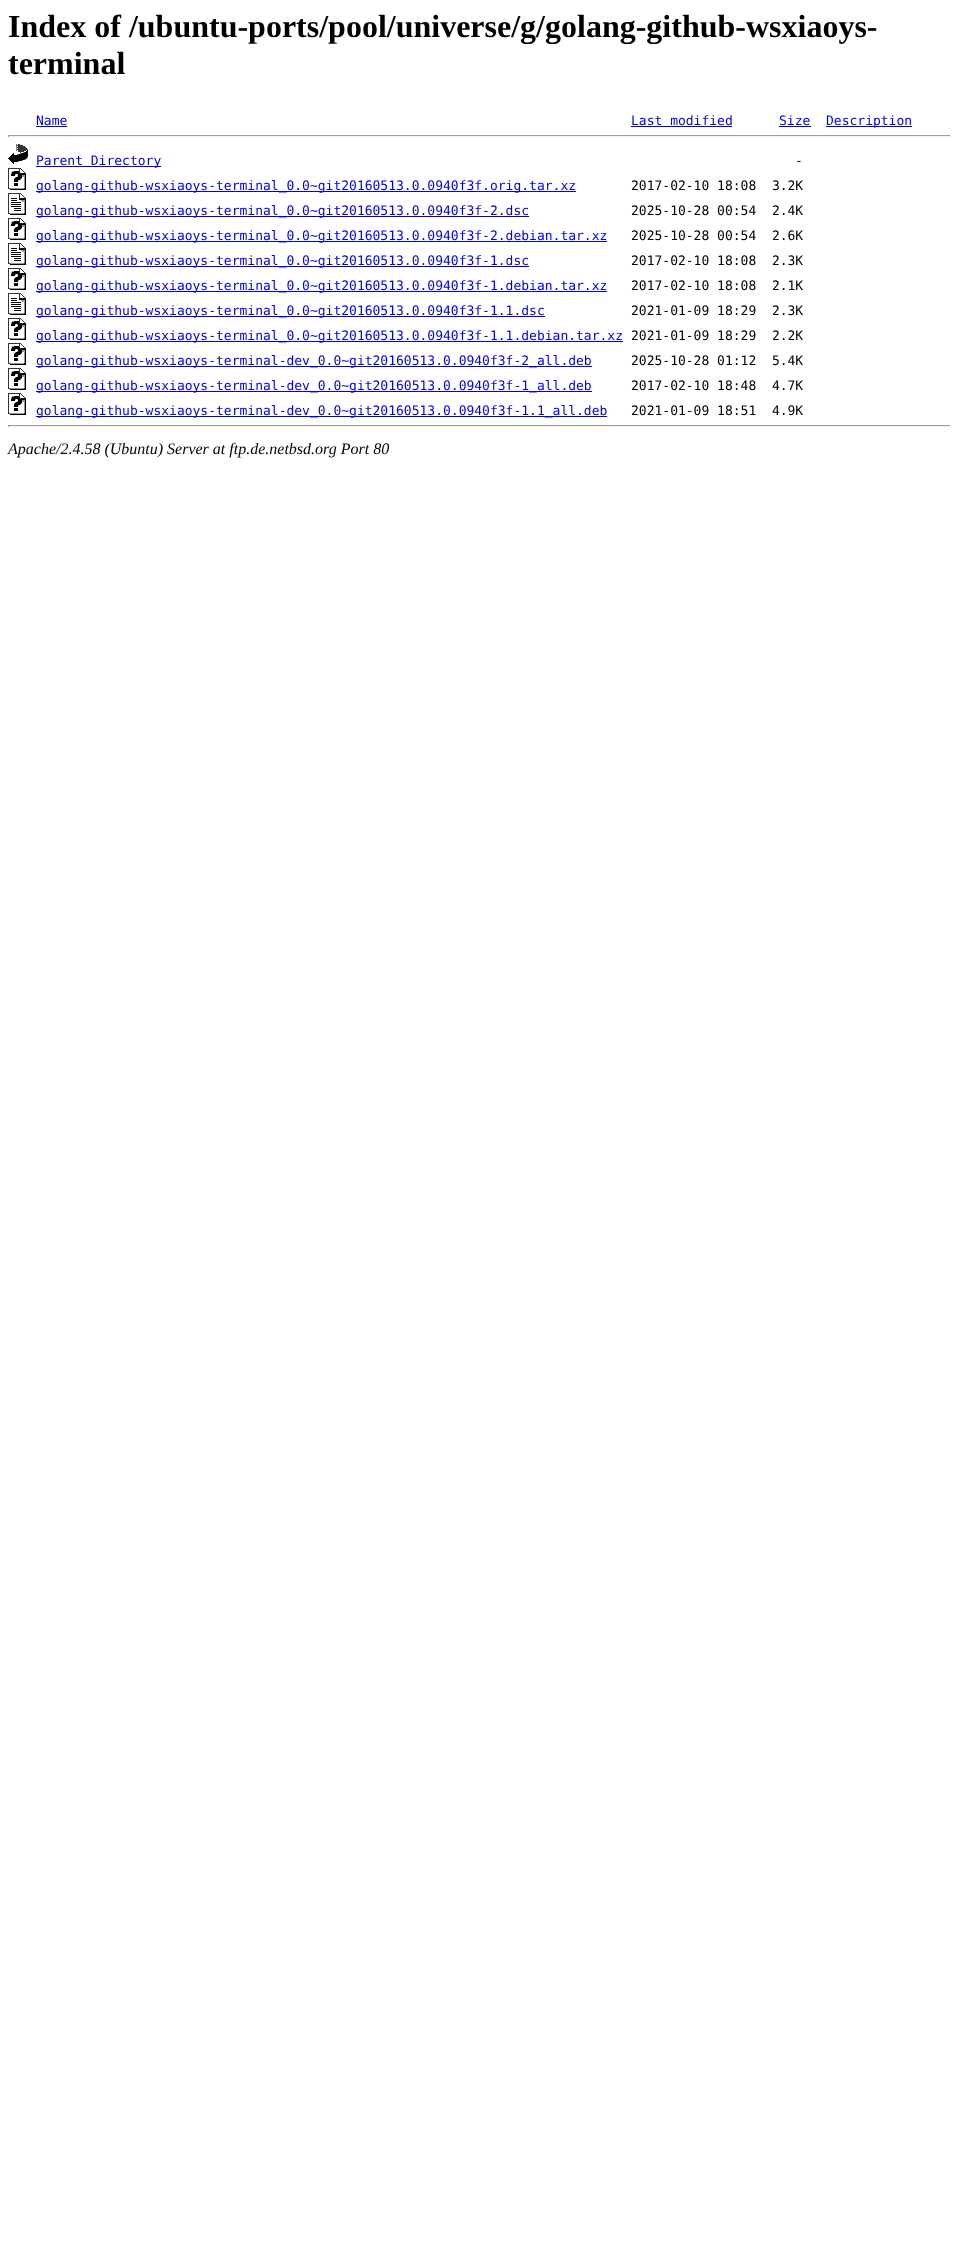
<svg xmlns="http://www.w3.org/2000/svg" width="959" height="2262">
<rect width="100%" height="100%" fill="#fff"/>
<text x="8" y="37" style="font-family:Liberation Serif;font-size:32px;font-weight:bold;fill:#000">Index of /ubuntu-ports/pool/universe/g/golang-github-wsxiaoys-</text>
<text x="8" y="74" style="font-family:Liberation Serif;font-size:32px;font-weight:bold;fill:#000">terminal</text>
<text x="36" y="125" style="font-family:DejaVu Sans Mono;font-size:13px;fill:#00e">Name</text>
<rect x="36" y="126" width="31" height="1" fill="#00e"/>
<text x="631" y="125" style="font-family:DejaVu Sans Mono;font-size:13px;fill:#00e">Last modified</text>
<rect x="631" y="126" width="101" height="1" fill="#00e"/>
<text x="779" y="125" style="font-family:DejaVu Sans Mono;font-size:13px;fill:#00e">Size</text>
<rect x="779" y="126" width="32" height="1" fill="#00e"/>
<rect x="826" y="126" width="86" height="1" fill="#00e"/>
<text x="826" y="125" style="font-family:DejaVu Sans Mono;font-size:13px;fill:#00e">Description</text>
<rect x="8" y="135" width="943" height="1" fill="#9f9f9f"/>
<rect x="950" y="135" width="1" height="2" fill="#eee"/>
<rect x="8" y="136" width="943" height="1" fill="#eee"/>
<rect x="8" y="135" width="1" height="2" fill="#9f9f9f"/>
<image x="8" y="144" width="20" height="20" href="media/1.png"/>
<rect x="36" y="166" width="125" height="1" fill="#00e"/>
<text x="36" y="165" style="font-family:DejaVu Sans Mono;font-size:13px;fill:#00e">Parent Directory</text>
<text x="795" y="165" style="font-family:DejaVu Sans Mono;font-size:13px;fill:#000">-</text>
<image x="8" y="168" width="18" height="22" href="media/2.png"/>
<rect x="36" y="191" width="540" height="1" fill="#00e"/>
<text x="36" y="190" style="font-family:DejaVu Sans Mono;font-size:13px;fill:#00e">golang-github-wsxiaoys-terminal_0.0~git20160513.0.0940f3f.orig.tar.xz</text>
<text x="631" y="190" style="font-family:DejaVu Sans Mono;font-size:13px;fill:#000" xml:space="preserve">2017-02-10 18:08  3.2K</text>
<image x="8" y="193" width="18" height="22" href="media/3.png"/>
<rect x="36" y="216" width="493" height="1" fill="#00e"/>
<text x="36" y="215" style="font-family:DejaVu Sans Mono;font-size:13px;fill:#00e">golang-github-wsxiaoys-terminal_0.0~git20160513.0.0940f3f-2.dsc</text>
<text x="631" y="215" style="font-family:DejaVu Sans Mono;font-size:13px;fill:#000" xml:space="preserve">2025-10-28 00:54  2.4K</text>
<image x="8" y="218" width="18" height="22" href="media/2.png"/>
<rect x="36" y="241" width="571" height="1" fill="#00e"/>
<text x="36" y="240" style="font-family:DejaVu Sans Mono;font-size:13px;fill:#00e">golang-github-wsxiaoys-terminal_0.0~git20160513.0.0940f3f-2.debian.tar.xz</text>
<text x="631" y="240" style="font-family:DejaVu Sans Mono;font-size:13px;fill:#000" xml:space="preserve">2025-10-28 00:54  2.6K</text>
<image x="8" y="243" width="18" height="22" href="media/3.png"/>
<rect x="36" y="266" width="493" height="1" fill="#00e"/>
<text x="36" y="265" style="font-family:DejaVu Sans Mono;font-size:13px;fill:#00e">golang-github-wsxiaoys-terminal_0.0~git20160513.0.0940f3f-1.dsc</text>
<text x="631" y="265" style="font-family:DejaVu Sans Mono;font-size:13px;fill:#000" xml:space="preserve">2017-02-10 18:08  2.3K</text>
<image x="8" y="268" width="18" height="22" href="media/2.png"/>
<rect x="36" y="291" width="571" height="1" fill="#00e"/>
<text x="36" y="290" style="font-family:DejaVu Sans Mono;font-size:13px;fill:#00e">golang-github-wsxiaoys-terminal_0.0~git20160513.0.0940f3f-1.debian.tar.xz</text>
<text x="631" y="290" style="font-family:DejaVu Sans Mono;font-size:13px;fill:#000" xml:space="preserve">2017-02-10 18:08  2.1K</text>
<image x="8" y="293" width="18" height="22" href="media/3.png"/>
<rect x="36" y="316" width="509" height="1" fill="#00e"/>
<text x="36" y="315" style="font-family:DejaVu Sans Mono;font-size:13px;fill:#00e">golang-github-wsxiaoys-terminal_0.0~git20160513.0.0940f3f-1.1.dsc</text>
<text x="631" y="315" style="font-family:DejaVu Sans Mono;font-size:13px;fill:#000" xml:space="preserve">2021-01-09 18:29  2.3K</text>
<image x="8" y="318" width="18" height="22" href="media/2.png"/>
<rect x="36" y="341" width="587" height="1" fill="#00e"/>
<text x="36" y="340" style="font-family:DejaVu Sans Mono;font-size:13px;fill:#00e">golang-github-wsxiaoys-terminal_0.0~git20160513.0.0940f3f-1.1.debian.tar.xz</text>
<text x="631" y="340" style="font-family:DejaVu Sans Mono;font-size:13px;fill:#000" xml:space="preserve">2021-01-09 18:29  2.2K</text>
<image x="8" y="343" width="18" height="22" href="media/2.png"/>
<rect x="36" y="366" width="556" height="1" fill="#00e"/>
<text x="36" y="365" style="font-family:DejaVu Sans Mono;font-size:13px;fill:#00e">golang-github-wsxiaoys-terminal-dev_0.0~git20160513.0.0940f3f-2_all.deb</text>
<text x="631" y="365" style="font-family:DejaVu Sans Mono;font-size:13px;fill:#000" xml:space="preserve">2025-10-28 01:12  5.4K</text>
<image x="8" y="368" width="18" height="22" href="media/2.png"/>
<rect x="36" y="391" width="556" height="1" fill="#00e"/>
<text x="36" y="390" style="font-family:DejaVu Sans Mono;font-size:13px;fill:#00e">golang-github-wsxiaoys-terminal-dev_0.0~git20160513.0.0940f3f-1_all.deb</text>
<text x="631" y="390" style="font-family:DejaVu Sans Mono;font-size:13px;fill:#000" xml:space="preserve">2017-02-10 18:48  4.7K</text>
<image x="8" y="393" width="18" height="22" href="media/2.png"/>
<rect x="36" y="416" width="571" height="1" fill="#00e"/>
<text x="36" y="415" style="font-family:DejaVu Sans Mono;font-size:13px;fill:#00e">golang-github-wsxiaoys-terminal-dev_0.0~git20160513.0.0940f3f-1.1_all.deb</text>
<text x="631" y="415" style="font-family:DejaVu Sans Mono;font-size:13px;fill:#000" xml:space="preserve">2021-01-09 18:51  4.9K</text>
<rect x="8" y="425" width="943" height="1" fill="#9f9f9f"/>
<rect x="950" y="425" width="1" height="2" fill="#eee"/>
<rect x="8" y="426" width="943" height="1" fill="#eee"/>
<rect x="8" y="425" width="1" height="2" fill="#9f9f9f"/>
<text x="8" y="454" style="font-family:Liberation Serif;font-size:16px;font-style:italic;fill:#000">Apache/2.4.58 (Ubuntu) Server at ftp.de.netbsd.org Port 80</text>
</svg>
